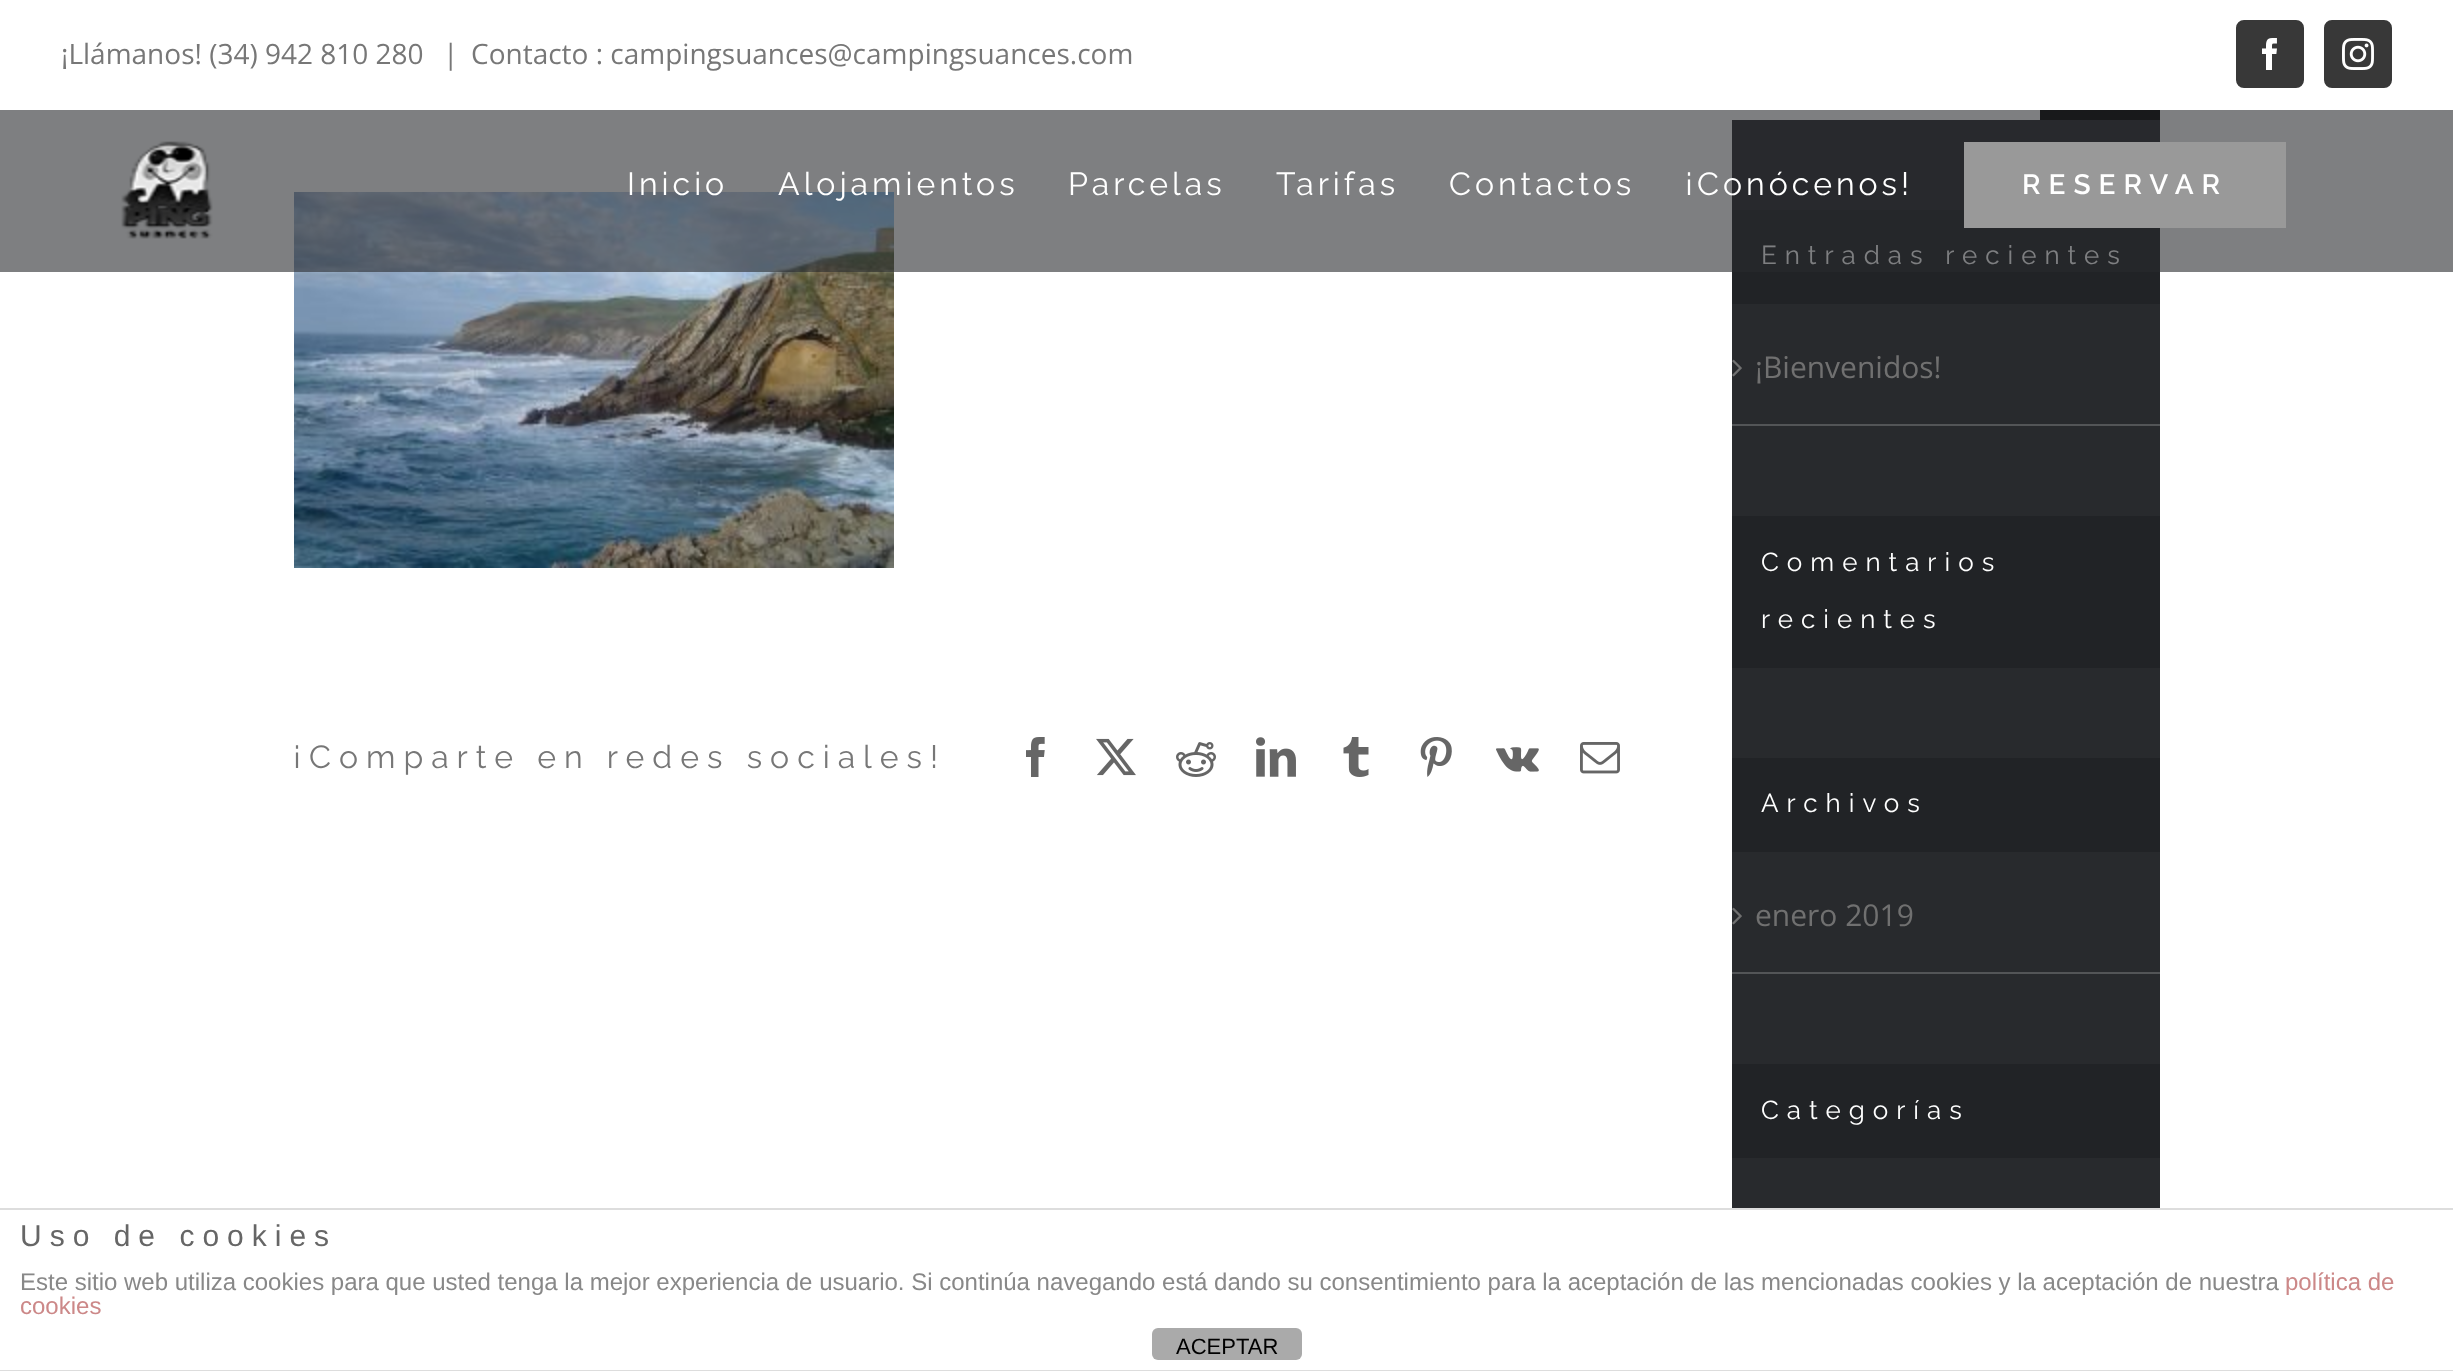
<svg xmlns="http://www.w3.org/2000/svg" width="2453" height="1371">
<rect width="100%" height="100%" fill="#fff"/>
<text x="61" y="64" style="font-family:Open Sans;font-size:28px;fill:#777">¡Llámanos! (34) 942 810 280</text>
<text x="443" y="64" style="font-family:Open Sans;font-size:28px;fill:#777">|</text>
<text x="471" y="64" style="font-family:Open Sans;font-size:28px;fill:#777">Contacto : campingsuances@campingsuances.com</text>
<rect x="2237" y="21" width="66" height="66" rx="7" fill="#383838" stroke="#383838" stroke-width="2"/>
<image x="2262" y="38" width="15" height="32" href="media/1.png"/>
<rect x="2325" y="21" width="66" height="66" rx="7" fill="#383838" stroke="#383838" stroke-width="2"/>
<image x="2342" y="38" width="32" height="32" href="media/2.png"/>
<image x="294" y="192" width="600" height="376" href="media/4.png"/>
<rect x="1732" y="120" width="428" height="1088" fill="#282a2d"/>
<rect x="2040" y="110" width="120" height="10" fill="#000"/>
<rect x="1732" y="210" width="428" height="94" fill="#212326"/>
<text x="1761" y="264" style="font-family:Raleway;font-size:26px;letter-spacing:8px;fill:#fff">Entradas recientes</text>
<rect y="110" width="2453" height="162" fill="#282a2d99"/>
<image x="121" y="141" width="92" height="98" href="media/3.png"/>
<text x="627" y="195" style="font-family:Raleway;font-size:32px;letter-spacing:4px;fill:#fff">Inicio</text>
<text x="778" y="195" style="font-family:Raleway;font-size:32px;letter-spacing:4px;fill:#fff">Alojamientos</text>
<text x="1068" y="195" style="font-family:Raleway;font-size:32px;letter-spacing:4px;fill:#fff">Parcelas</text>
<text x="1276" y="195" style="font-family:Raleway;font-size:32px;letter-spacing:4px;fill:#fff">Tarifas</text>
<text x="1449" y="195" style="font-family:Raleway;font-size:32px;letter-spacing:4px;fill:#fff">Contactos</text>
<text x="1685" y="195" style="font-family:Raleway;font-size:32px;letter-spacing:4px;fill:#fff">¡Conócenos!</text>
<rect x="1964" y="142" width="322" height="86" fill="#999"/>
<text x="2022" y="194" style="font-family:Raleway;font-size:28px;font-weight:600;letter-spacing:8px;fill:#fff">RESERVAR</text>
<text x="293" y="768" style="font-family:Raleway;font-size:32px;letter-spacing:8px;fill:#777">¡Comparte en redes sociales!</text>
<image x="1026" y="737" width="19" height="40" href="media/5.png"/>
<image x="1096" y="738" width="40" height="38" href="media/6.png"/>
<image x="1176" y="742" width="40" height="35" href="media/7.png"/>
<image x="1256" y="737" width="40" height="40" href="media/8.png"/>
<image x="1343" y="737" width="26" height="40" href="media/9.png"/>
<image x="1420" y="737" width="32" height="40" href="media/10.png"/>
<image x="1496" y="747" width="43" height="25" href="media/11.png"/>
<image x="1580" y="742" width="40" height="32" href="media/12.png"/>
<rect x="1732" y="424" width="428" height="2" fill="#535557"/>
<image x="1732" y="359" width="10" height="18" href="media/13.png"/>
<text x="1755" y="378" style="font-family:Open Sans;font-size:30px;fill:#707070">¡Bienvenidos!</text>
<rect x="1732" y="516" width="428" height="152" fill="#212326"/>
<text x="1761" y="571" style="font-family:Raleway;font-size:26px;letter-spacing:8px;fill:#fff">Comentarios</text>
<text x="1761" y="628" style="font-family:Raleway;font-size:26px;letter-spacing:8px;fill:#fff">recientes</text>
<rect x="1732" y="758" width="428" height="94" fill="#212326"/>
<text x="1761" y="812" style="font-family:Raleway;font-size:26px;letter-spacing:8px;fill:#fff">Archivos</text>
<rect x="1732" y="972" width="428" height="2" fill="#535557"/>
<image x="1732" y="907" width="10" height="18" href="media/13.png"/>
<text x="1755" y="926" style="font-family:Open Sans;font-size:30px;fill:#707070">enero 2019</text>
<rect x="1732" y="1064" width="428" height="94" fill="#212326"/>
<text x="1761" y="1119" style="font-family:Raleway;font-size:26px;letter-spacing:8px;fill:#fff">Categorías</text>
<rect y="1208" width="2453" height="2" fill="#ddd"/>
<rect y="1370" width="2453" height="1" fill="#ddd"/>
<text x="20" y="1246" style="font-family:Liberation Sans;font-size:30px;letter-spacing:8px;fill:#666">Uso de cookies</text>
<text x="20" y="1290" style="font-family:Liberation Sans;font-size:24px;fill:#888">Este sitio web utiliza cookies para que usted tenga la mejor experiencia de usuario. Si continúa navegando está dando su consentimiento para la aceptación de las mencionadas cookies y la aceptación de nuestra</text>
<text x="2285" y="1290" style="font-family:Liberation Sans;font-size:24px;fill:#c88">política de</text>
<text x="20" y="1314" style="font-family:Liberation Sans;font-size:24px;fill:#c88">cookies</text>
<rect x="1152" y="1328" width="150" height="32" rx="6" fill="#aaa"/>
<text x="1176" y="1354" style="font-family:Liberation Sans;font-size:22px;fill:#000">ACEPTAR</text>
</svg>
